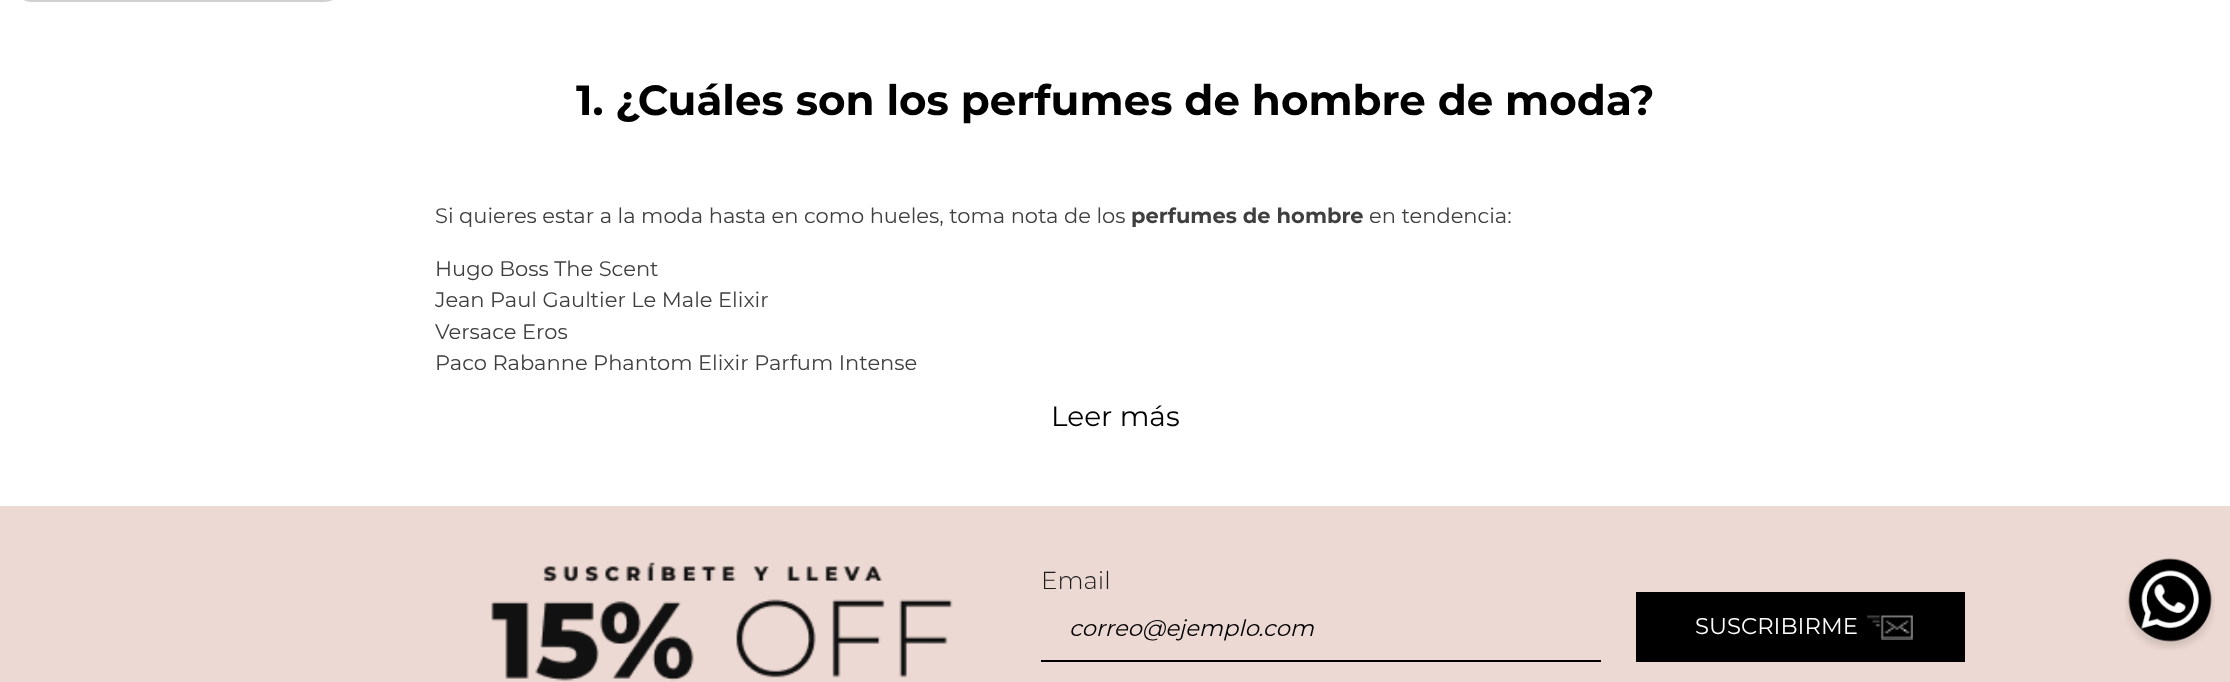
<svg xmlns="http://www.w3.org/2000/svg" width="2230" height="682">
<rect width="100%" height="100%" fill="#fff"/>
<rect x="19" y="-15" width="318" height="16" rx="13" fill="none" stroke="#d0d0d0" stroke-width="2"/>
<text x="576" y="115" style="font-family:Montserrat;font-size:42px;font-weight:bold;fill:#000">1. ¿Cuáles son los perfumes de hombre de moda?</text>
<text x="435" y="223" style="font-family:Montserrat;font-size:21px;fill:#3f3f40">Si quieres estar a la moda hasta en como hueles, toma nota de los</text>
<text x="1131" y="223" style="font-family:Montserrat;font-size:21px;font-weight:bold;fill:#3f3f40">perfumes de hombre</text>
<text x="1369" y="223" style="font-family:Montserrat;font-size:21px;fill:#3f3f40">en tendencia:</text>
<text x="435" y="276" style="font-family:Montserrat;font-size:21px;fill:#3f3f40">Hugo Boss The Scent</text>
<text x="435" y="307" style="font-family:Montserrat;font-size:21px;fill:#3f3f40">Jean Paul Gaultier Le Male Elixir</text>
<text x="435" y="339" style="font-family:Montserrat;font-size:21px;fill:#3f3f40">Versace Eros</text>
<text x="435" y="370" style="font-family:Montserrat;font-size:21px;fill:#3f3f40">Paco Rabanne Phantom Elixir Parfum Intense</text>
<text x="1051" y="426" style="font-family:Montserrat;font-size:28px;fill:#000">Leer más</text>
<rect y="506" width="2230" height="176" fill="#edd9d3"/>
<image x="491" y="562" width="462" height="119" href="media/1.png"/>
<text x="1041" y="589" style="font-family:Montserrat;font-size:24.5px;font-weight:300;fill:#1c1c1c">Email</text>
<rect x="1041" y="660" width="560" height="2" fill="#000"/>
<text x="1069" y="636" style="font-family:Montserrat;font-size:22.75px;font-style:italic;fill:#000">correo@ejemplo.com</text>
<rect x="1636" y="592" width="329" height="70" fill="#000"/>
<text x="1695" y="634" style="font-family:Montserrat;font-size:22.75px;fill:#fff">SUSCRIBIRME</text>
<image x="1867" y="615" width="46" height="25" href="media/2.png"/>
<image x="2125" y="558" width="90" height="92" href="media/3.png"/>
</svg>
